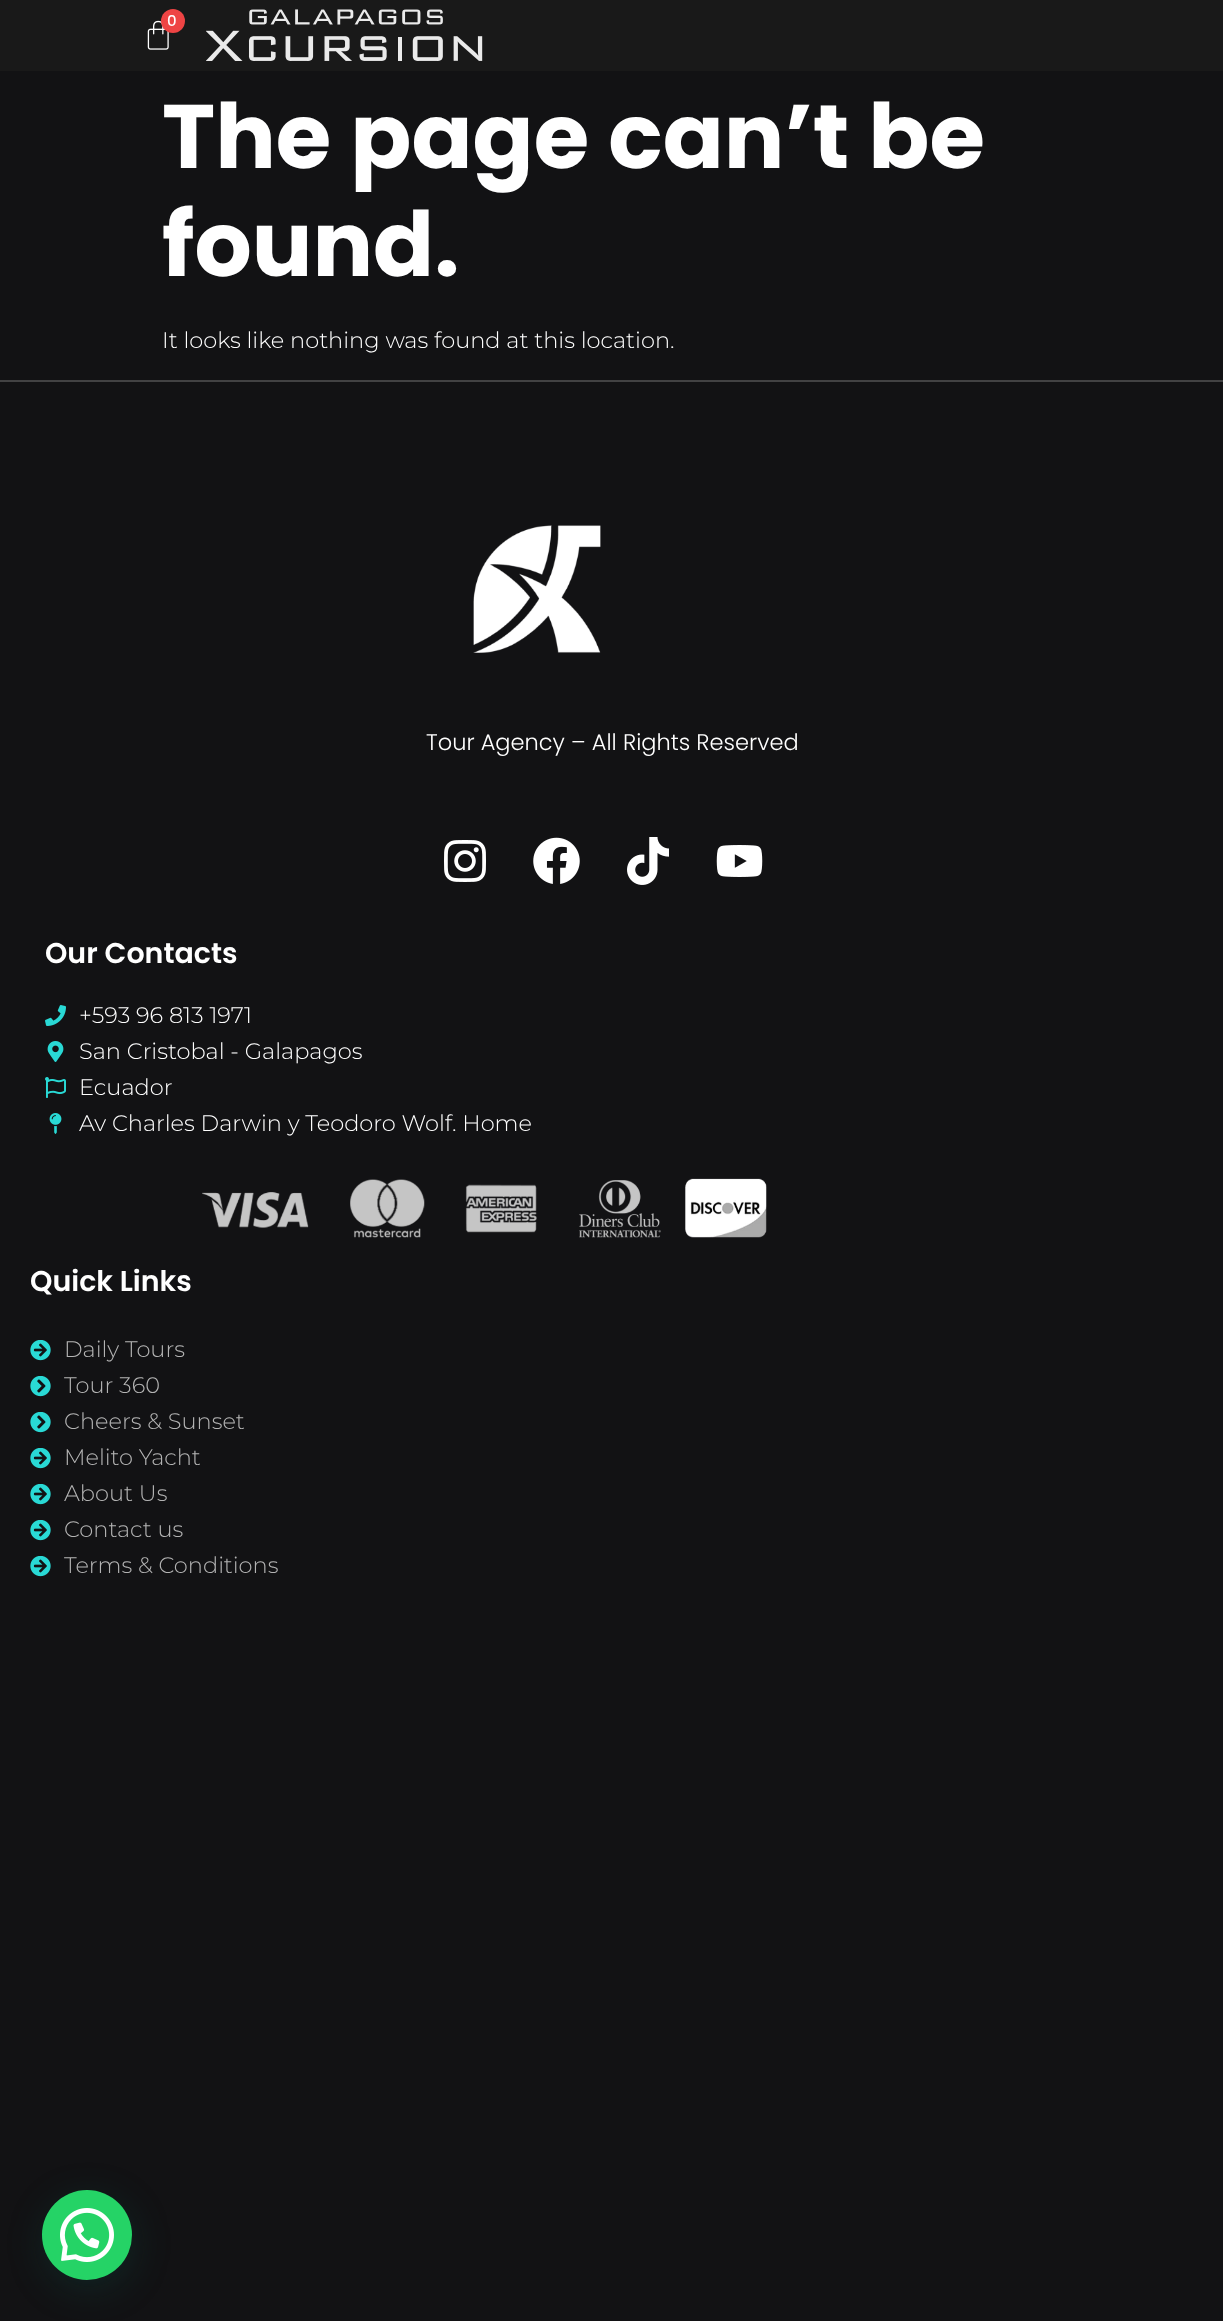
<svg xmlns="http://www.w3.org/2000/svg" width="1223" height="2321">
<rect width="100%" height="100%" fill="#121214"/>
<rect width="1223" height="71" fill="#191919"/>
<image x="147" y="20" width="22" height="30" href="media/1.png"/>
<circle cx="173" cy="21" r="12" fill="#e44"/>
<text x="167" y="26" style="font-family:Poppins;font-size:15px;font-weight:500;letter-spacing:1px;fill:#fff">0</text>
<image x="206" y="9" width="277" height="52" href="media/2.png"/>
<text x="162" y="168" style="font-family:Poppins;font-size:90px;font-weight:bold;fill:#fff">The page can’t be</text>
<text x="162" y="276" style="font-family:Poppins;font-size:90px;font-weight:bold;fill:#fff">found.</text>
<text x="162" y="348" style="font-family:Montserrat;font-size:22.5px;font-weight:300;fill:#fff">It looks like nothing was found at this location.</text>
<rect y="380" width="1223" height="2" fill="#424243"/>
<image x="473" y="525" width="128" height="128" href="media/3.png"/>
<text x="426" y="750" style="font-family:Poppins;font-size:22.5px;font-weight:300;fill:#fff">Tour Agency – All Rights Reserved</text>
<image x="444" y="840" width="42" height="42" href="media/4.png"/>
<image x="533" y="837" width="47" height="47" href="media/5.png"/>
<image x="627" y="837" width="42" height="48" href="media/6.png"/>
<image x="716" y="845" width="47" height="32" href="media/7.png"/>
<text x="45" y="963" style="font-family:Poppins;font-size:28.5px;font-weight:600;fill:#fff">Our Contacts</text>
<image x="45" y="1005" width="21" height="21" href="media/8.png"/>
<text x="79" y="1023" style="font-family:Montserrat;font-size:22.5px;font-weight:300;fill:#fff">+593 96 813 1971</text>
<image x="47" y="1041" width="17" height="21" href="media/9.png"/>
<text x="79" y="1059" style="font-family:Montserrat;font-size:22.5px;font-weight:300;fill:#fff">San Cristobal - Galapagos</text>
<image x="45" y="1077" width="21" height="21" href="media/10.png"/>
<text x="79" y="1095" style="font-family:Montserrat;font-size:22.5px;font-weight:300;fill:#fff">Ecuador</text>
<image x="49" y="1113" width="13" height="21" href="media/11.png"/>
<text x="79" y="1131" style="font-family:Montserrat;font-size:22.5px;font-weight:300;fill:#fff">Av Charles Darwin y Teodoro Wolf. Home</text>
<image x="202" y="1178" width="565" height="60" href="media/12.png"/>
<text x="30" y="1291" style="font-family:Poppins;font-size:28.5px;font-weight:600;fill:#fff">Quick Links</text>
<image x="30" y="1340" width="21" height="21" href="media/13.png"/>
<text x="64" y="1357" style="font-family:Montserrat;font-size:22.5px;font-weight:300;fill:#b4b4b4">Daily Tours</text>
<image x="30" y="1376" width="21" height="21" href="media/14.png"/>
<text x="64" y="1393" style="font-family:Montserrat;font-size:22.5px;font-weight:300;fill:#b4b4b4">Tour 360</text>
<image x="30" y="1412" width="21" height="21" href="media/14.png"/>
<text x="64" y="1429" style="font-family:Montserrat;font-size:22.5px;font-weight:300;fill:#b4b4b4">Cheers &amp; Sunset</text>
<image x="30" y="1448" width="21" height="21" href="media/13.png"/>
<text x="64" y="1465" style="font-family:Montserrat;font-size:22.5px;font-weight:300;fill:#b4b4b4">Melito Yacht</text>
<image x="30" y="1484" width="21" height="21" href="media/13.png"/>
<text x="64" y="1501" style="font-family:Montserrat;font-size:22.5px;font-weight:300;fill:#b4b4b4">About Us</text>
<image x="30" y="1520" width="21" height="21" href="media/13.png"/>
<text x="64" y="1537" style="font-family:Montserrat;font-size:22.5px;font-weight:300;fill:#b4b4b4">Contact us</text>
<image x="30" y="1556" width="21" height="21" href="media/13.png"/>
<text x="64" y="1573" style="font-family:Montserrat;font-size:22.5px;font-weight:300;fill:#b4b4b4">Terms &amp; Conditions</text>
<rect x="44" y="2199" width="90" height="90" rx="45" fill="#075e543d" filter="blur(18px)"/>
<circle cx="87" cy="2235" r="45" fill="#25d366"/>
<image x="60" y="2208" width="54" height="54" href="media/15.png"/>
</svg>
